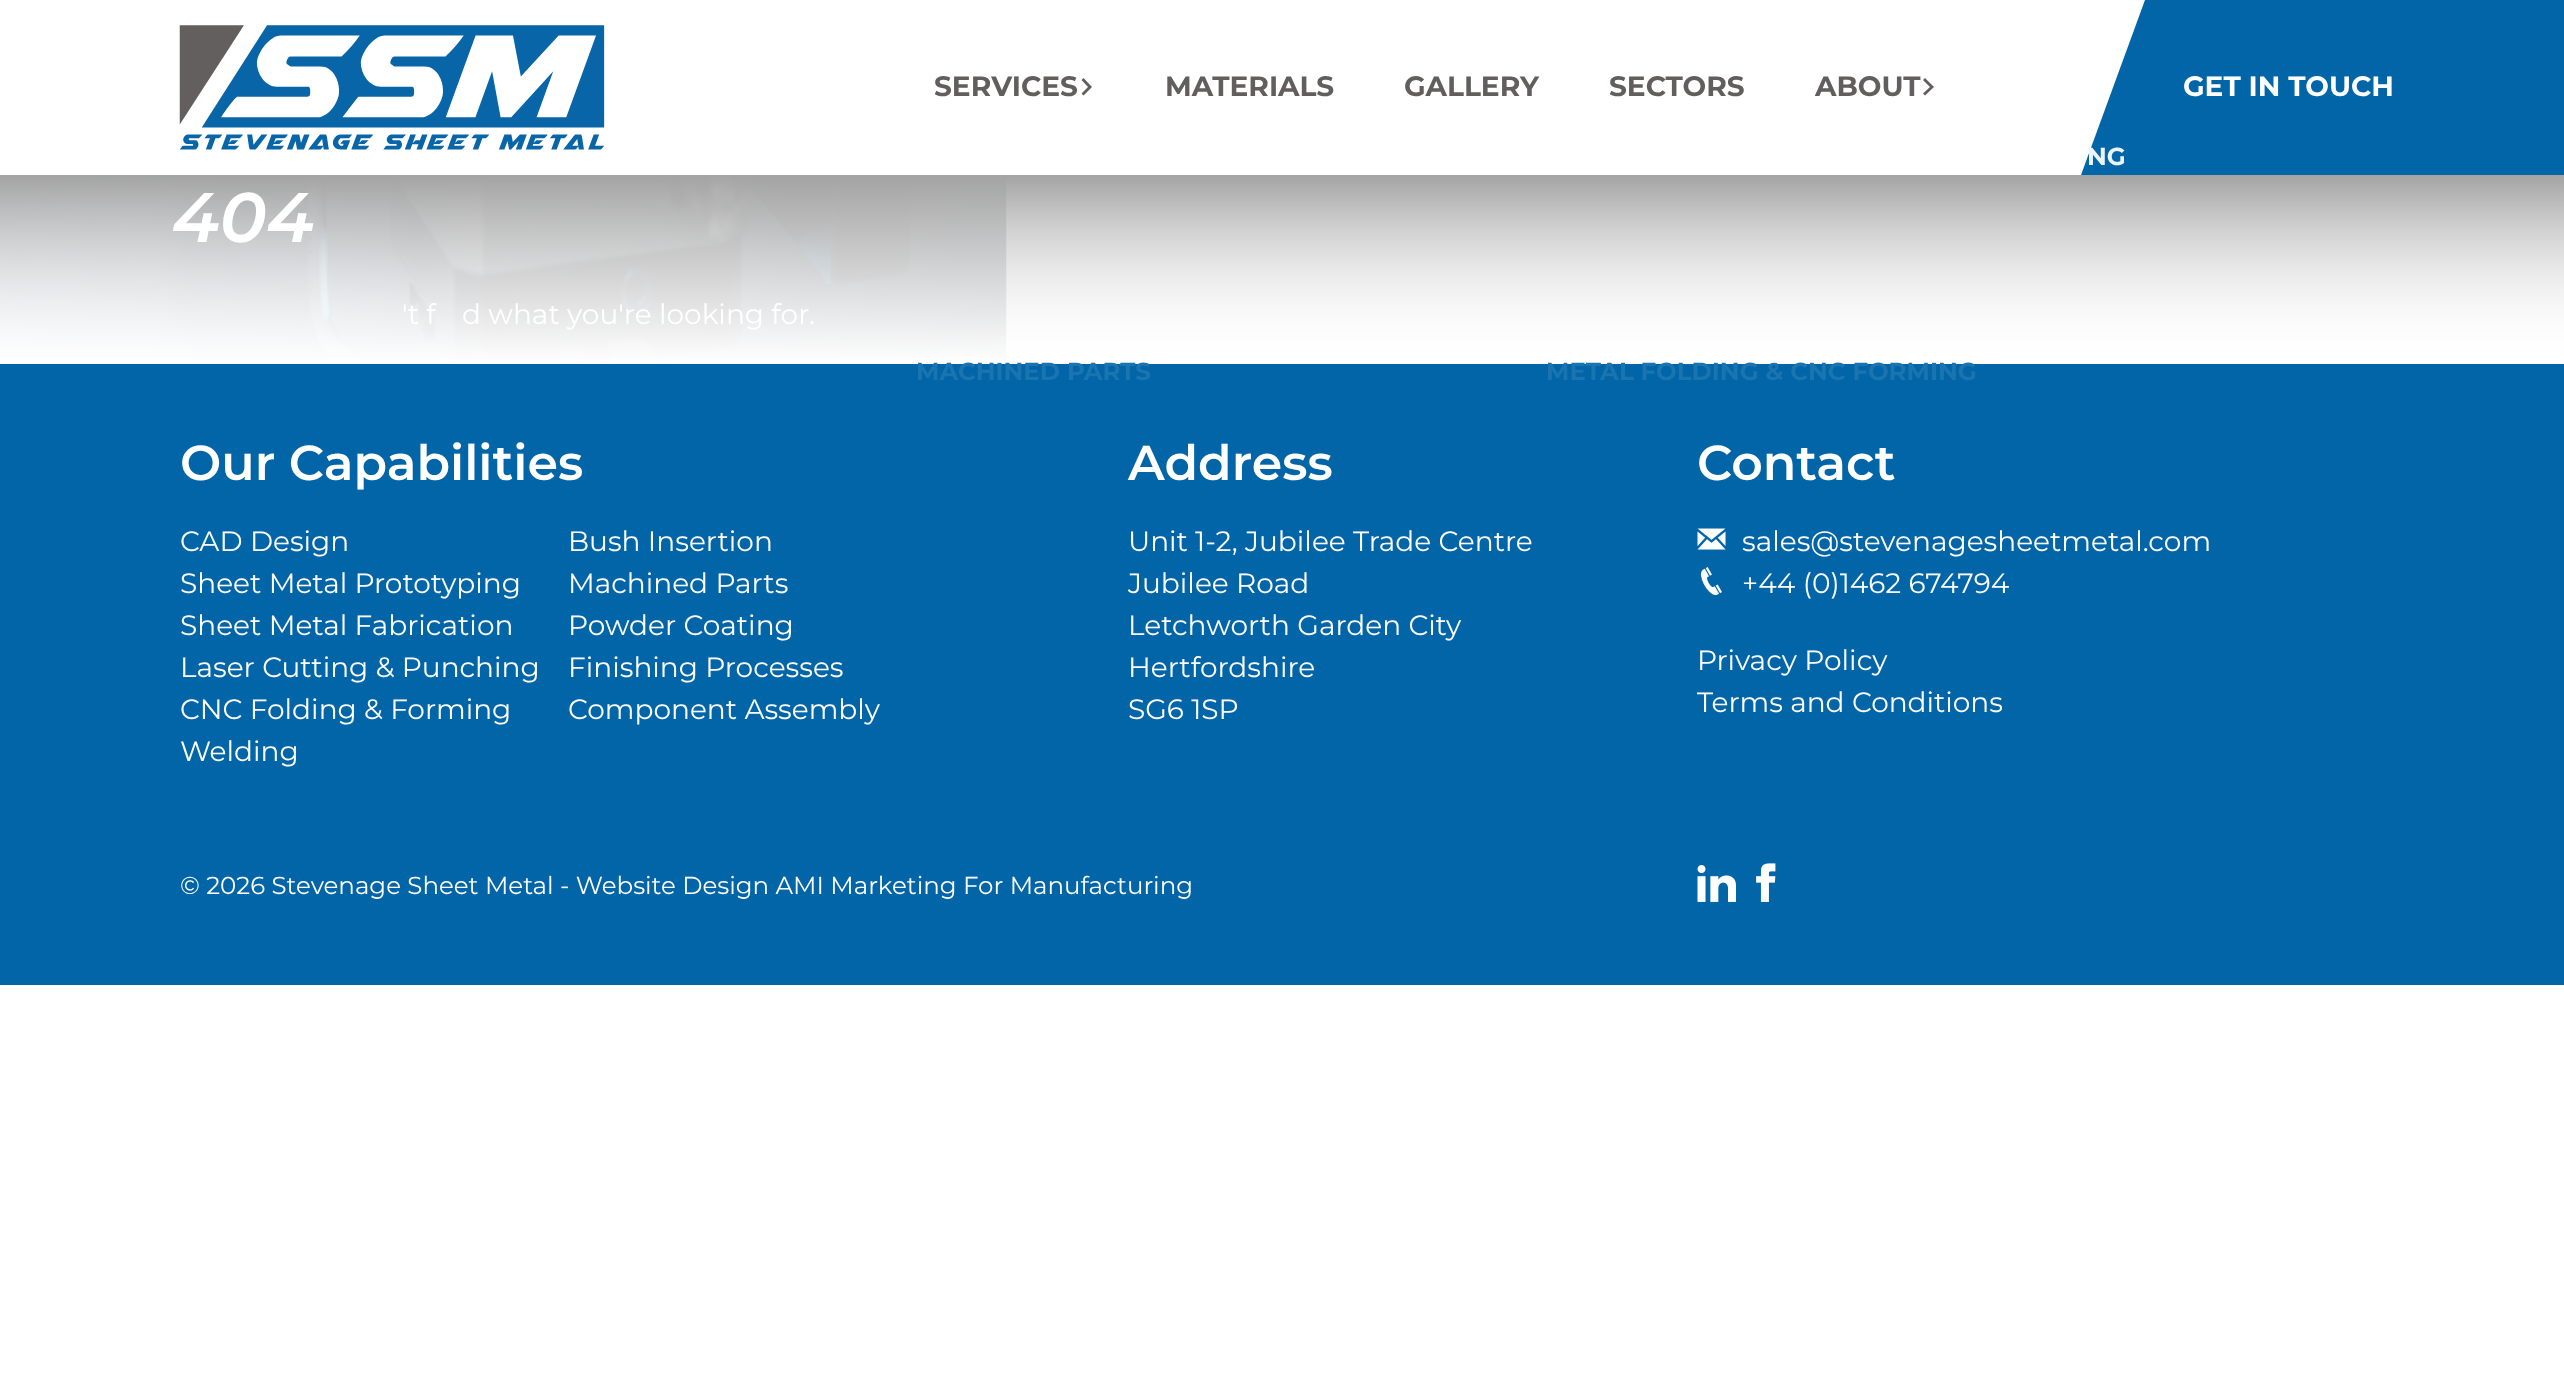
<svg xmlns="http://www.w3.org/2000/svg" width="2564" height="1394">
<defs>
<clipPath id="clip1"><rect x="2077" width="422" height="175"/></clipPath>
<linearGradient id="g1" gradientUnits="userSpaceOnUse" x1="1283" y1="175" x2="1283" y2="364"><stop offset="0" stop-color="#000"/><stop offset="1" stop-color="#000" stop-opacity="0"/></linearGradient>
<linearGradient id="g2" gradientUnits="userSpaceOnUse" x1="1283" y1="-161" x2="1283" y2="364"><stop offset="0" stop-color="#fff" stop-opacity="0"/><stop offset="1" stop-color="#fff"/></linearGradient>
</defs>
<rect width="100%" height="100%" fill="#fff"/>
<image x="179" y="25" width="426" height="125" href="media/1.png"/>
<text x="934" y="96" style="font-family:Montserrat;font-size:28px;font-weight:bold;fill:#625e5d">SERVICES</text>
<path d="M1083.5 95.5l-2-2l6.5-6.5l-6.5-7l2-2l8.5 9z" fill="#625e5d"/>
<g clip-path="url(#clip1)">
<path d="M2145 0h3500l-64 175h-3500z" fill="#0165a7"/>
</g>
<text x="2087" y="165" style="font-family:Montserrat;font-size:24.5px;font-weight:bold;fill:#edf4f9">NG</text>
<rect y="364" width="2564" height="621" fill="#0165a7"/>
<text x="916" y="380" style="font-family:Montserrat;font-size:24.5px;font-weight:bold;fill:#1974af">MACHINED PARTS</text>
<text x="1546" y="380" style="font-family:Montserrat;font-size:24.5px;font-weight:bold;fill:#1974af">METAL FOLDING &amp; CNC FORMING</text>
<text x="1165" y="96" style="font-family:Montserrat;font-size:28px;font-weight:bold;fill:#625e5d">MATERIALS</text>
<text x="1404" y="96" style="font-family:Montserrat;font-size:28px;font-weight:bold;fill:#625e5d">GALLERY</text>
<text x="1609" y="96" style="font-family:Montserrat;font-size:28px;font-weight:bold;fill:#625e5d">SECTORS</text>
<text x="1815" y="96" style="font-family:Montserrat;font-size:28px;font-weight:bold;fill:#625e5d">ABOUT</text>
<path d="M1925 95.5l-2-2l7-6.5l-7-7l2-2l9 9z" fill="#625e5d"/>
<text x="2183" y="96" style="font-family:Montserrat;font-size:28px;font-weight:bold;fill:#fff">GET IN TOUCH</text>
<rect x="2499" width="65" height="175" fill="#0165a7"/>
<image x="0" y="176" width="1007" height="185" href="media/2.png"/>
<rect y="175" width="2564" height="185" fill="url(#g1)"/>
<rect y="175" width="2564" height="186" fill="url(#g2)"/>
<text x="172" y="242" style="font-family:Montserrat;font-size:70px;font-weight:600;font-style:italic;fill:#fff">404</text>
<text x="402" y="324" style="font-family:Montserrat;font-size:28px;fill:#fff">'t f</text>
<text x="462" y="324" style="font-family:Montserrat;font-size:28px;fill:#fff">d what you're looking for.</text>
<text x="180" y="480" style="font-family:Montserrat;font-size:49px;font-weight:600;fill:#fff">Our Capabilities</text>
<text x="180" y="551" style="font-family:Montserrat;font-size:28px;fill:#fff">CAD Design</text>
<text x="568" y="551" style="font-family:Montserrat;font-size:28px;fill:#fff">Bush Insertion</text>
<text x="180" y="593" style="font-family:Montserrat;font-size:28px;fill:#fff">Sheet Metal Prototyping</text>
<text x="568" y="593" style="font-family:Montserrat;font-size:28px;fill:#fff">Machined Parts</text>
<text x="180" y="635" style="font-family:Montserrat;font-size:28px;fill:#fff">Sheet Metal Fabrication</text>
<text x="568" y="635" style="font-family:Montserrat;font-size:28px;fill:#fff">Powder Coating</text>
<text x="180" y="677" style="font-family:Montserrat;font-size:28px;fill:#fff">Laser Cutting &amp; Punching</text>
<text x="568" y="677" style="font-family:Montserrat;font-size:28px;fill:#fff">Finishing Processes</text>
<text x="180" y="719" style="font-family:Montserrat;font-size:28px;fill:#fff">CNC Folding &amp; Forming</text>
<text x="568" y="719" style="font-family:Montserrat;font-size:28px;fill:#fff">Component Assembly</text>
<text x="180" y="761" style="font-family:Montserrat;font-size:28px;fill:#fff">Welding</text>
<text x="1128" y="480" style="font-family:Montserrat;font-size:49px;font-weight:600;fill:#fff">Address</text>
<text x="1128" y="551" style="font-family:Montserrat;font-size:28px;fill:#fff">Unit 1-2, Jubilee Trade Centre</text>
<text x="1128" y="593" style="font-family:Montserrat;font-size:28px;fill:#fff">Jubilee Road</text>
<text x="1128" y="635" style="font-family:Montserrat;font-size:28px;fill:#fff">Letchworth Garden City</text>
<text x="1128" y="677" style="font-family:Montserrat;font-size:28px;fill:#fff">Hertfordshire</text>
<text x="1128" y="719" style="font-family:Montserrat;font-size:28px;fill:#fff">SG6 1SP</text>
<text x="1697" y="480" style="font-family:Montserrat;font-size:49px;font-weight:600;fill:#fff">Contact</text>
<image x="1697" y="528" width="29" height="22" href="media/3.png"/>
<text x="1742" y="551" style="font-family:Montserrat;font-size:28px;fill:#fff">sales@stevenagesheetmetal.com</text>
<image x="1701" y="567" width="21" height="28" href="media/4.png"/>
<text x="1742" y="593" style="font-family:Montserrat;font-size:28px;fill:#fff">+44 (0)1462 674794</text>
<text x="1697" y="670" style="font-family:Montserrat;font-size:28px;fill:#fff">Privacy Policy</text>
<text x="1697" y="712" style="font-family:Montserrat;font-size:28px;fill:#fff">Terms and Conditions</text>
<text x="180" y="894" style="font-family:Montserrat;font-size:24.5px;fill:#fff">© 2026 Stevenage Sheet Metal - Website Design AMI Marketing For Manufacturing</text>
<image x="1697" y="865" width="39" height="37" href="media/5.png"/>
<image x="1756" y="863" width="20" height="39" href="media/6.png"/>
</svg>
